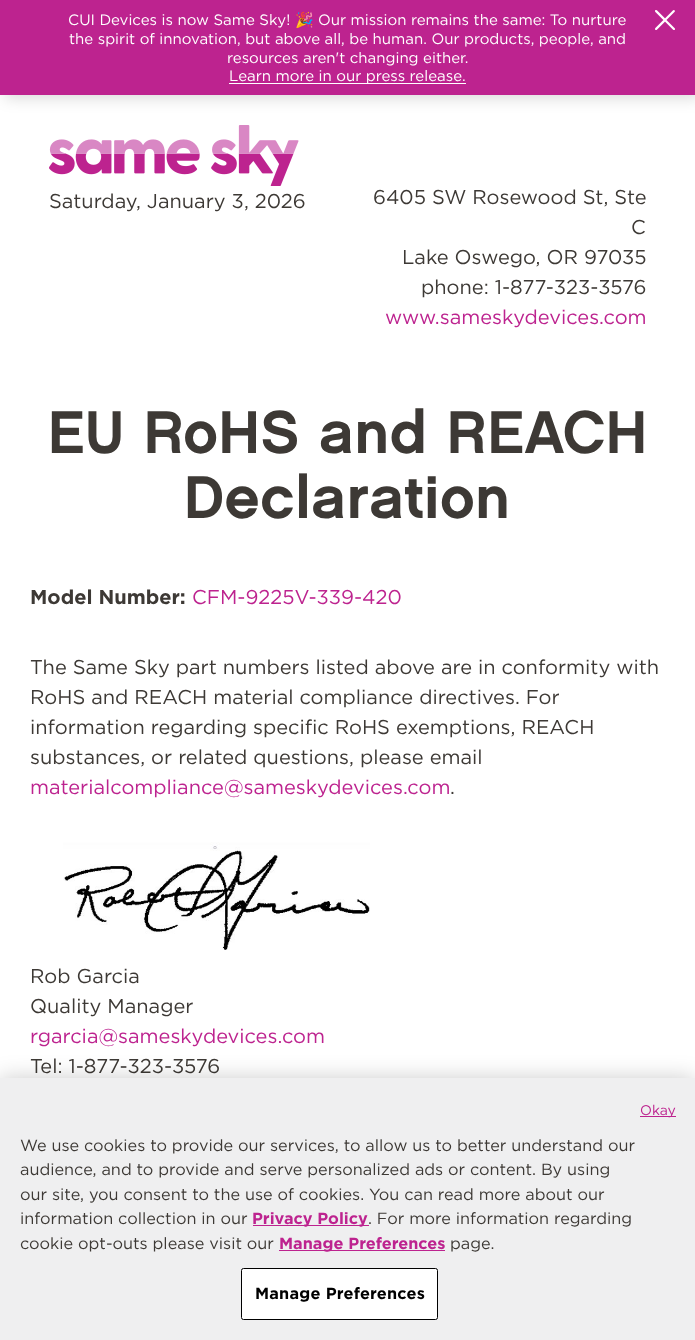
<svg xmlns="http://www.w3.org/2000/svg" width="695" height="1340">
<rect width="100%" height="100%" fill="#fff"/>
<rect x="5" y="3" width="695" height="95" fill="#00000026" filter="blur(7.5px)"/>
<rect width="695" height="95" fill="#bd238f"/>
<text x="68" y="25" style="font-family:'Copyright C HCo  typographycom';font-size:15px;font-weight:300;fill:#fff">CUI Devices is now Same Sky!</text>
<text x="295" y="25" style="font-family:Noto Color Emoji;font-size:15px;fill:#fff">🎉</text>
<text x="318" y="25" style="font-family:'Copyright C HCo  typographycom';font-size:15px;font-weight:300;fill:#fff">Our mission remains the same: To nurture</text>
<image x="655" y="10" width="20" height="20" href="media/1.png"/>
<text x="69" y="44" style="font-family:'Copyright C HCo  typographycom';font-size:15px;font-weight:300;fill:#fff">the spirit of innovation, but above all, be human. Our products, people, and</text>
<text x="227" y="63" style="font-family:'Copyright C HCo  typographycom';font-size:15px;font-weight:300;fill:#fff">resources aren't changing either.</text>
<rect x="229" y="83" width="237" height="1" fill="#fff"/>
<text x="229" y="81" style="font-family:'Copyright C HCo  typographycom';font-size:15px;font-weight:300;fill:#fff">Learn more in our press release.</text>
<image x="49" y="125" width="250" height="61" href="media/2.png"/>
<text x="49" y="208" style="font-family:'Copyright C HCo  typographycom';font-size:20px;font-weight:300;fill:#3d3935">Saturday, January 3, 2026</text>
<text x="373" y="204" style="font-family:'Copyright C HCo  typographycom';font-size:20px;font-weight:300;fill:#3d3935">6405 SW Rosewood St, Ste</text>
<text x="631" y="234" style="font-family:'Copyright C HCo  typographycom';font-size:20px;font-weight:300;fill:#3d3935">C</text>
<text x="402" y="264" style="font-family:'Copyright C HCo  typographycom';font-size:20px;font-weight:300;fill:#3d3935">Lake Oswego, OR 97035</text>
<text x="421" y="294" style="font-family:'Copyright C HCo  typographycom';font-size:20px;font-weight:300;fill:#3d3935">phone: 1-877-323-3576</text>
<text x="385" y="324" style="font-family:'Copyright C HCo  typographycom';font-size:20px;font-weight:300;fill:#bd238f">www.sameskydevices.com</text>
<text x="48" y="453" style="font-family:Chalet;font-size:60px;font-weight:bold;letter-spacing:0.6px;fill:#3d3935">EU RoHS and REACH</text>
<text x="184" y="518" style="font-family:Chalet;font-size:60px;font-weight:bold;letter-spacing:0.6px;fill:#3d3935">Declaration</text>
<text x="30" y="604" style="font-family:'Copyright C HCo  typographycom';font-size:20px;fill:#3d3935">Model Number:</text>
<text x="192" y="604" style="font-family:'Copyright C HCo  typographycom';font-size:20px;font-weight:300;fill:#bd238f">CFM-9225V-339-420</text>
<text x="30" y="674" style="font-family:'Copyright C HCo  typographycom';font-size:20px;font-weight:300;fill:#3d3935">The Same Sky part numbers listed above are in conformity with</text>
<text x="30" y="704" style="font-family:'Copyright C HCo  typographycom';font-size:20px;font-weight:300;fill:#3d3935">RoHS and REACH material compliance directives. For</text>
<text x="30" y="734" style="font-family:'Copyright C HCo  typographycom';font-size:20px;font-weight:300;fill:#3d3935">information regarding specific RoHS exemptions, REACH</text>
<text x="30" y="764" style="font-family:'Copyright C HCo  typographycom';font-size:20px;font-weight:300;fill:#3d3935">substances, or related questions, please email</text>
<text x="30" y="794" style="font-family:'Copyright C HCo  typographycom';font-size:20px;font-weight:300;fill:#bd238f">materialcompliance@sameskydevices.com</text>
<text x="450" y="794" style="font-family:'Copyright C HCo  typographycom';font-size:20px;font-weight:300;fill:#3d3935">.</text>
<image x="63" y="842" width="307" height="108" href="media/3.png"/>
<text x="30" y="983" style="font-family:'Copyright C HCo  typographycom';font-size:20px;font-weight:300;fill:#3d3935">Rob Garcia</text>
<text x="30" y="1013" style="font-family:'Copyright C HCo  typographycom';font-size:20px;font-weight:300;fill:#3d3935">Quality Manager</text>
<text x="30" y="1043" style="font-family:'Copyright C HCo  typographycom';font-size:20px;font-weight:300;fill:#bd238f">rgarcia@sameskydevices.com</text>
<text x="30" y="1073" style="font-family:'Copyright C HCo  typographycom';font-size:20px;font-weight:300;fill:#3d3935">Tel: 1-877-323-3576</text>
<rect y="1078" width="695" height="262" fill="#00000033" filter="blur(11px)"/>
<rect y="1078" width="695" height="262" fill="#efeff0"/>
<rect x="640" y="1116" width="36" height="1" fill="#bd238f"/>
<text x="640" y="1115" style="font-family:'Copyright C HCo  typographycom';font-size:14px;font-weight:300;fill:#bd238f">Okay</text>
<text x="20" y="1151" style="font-family:'Copyright C HCo  typographycom';font-size:16.25px;font-weight:300;fill:#3d3935">We use cookies to provide our services, to allow us to better understand our</text>
<text x="20" y="1175" style="font-family:'Copyright C HCo  typographycom';font-size:16.25px;font-weight:300;fill:#3d3935">audience, and to provide and serve personalized ads or content.</text>
<text x="541" y="1175" style="font-family:'Copyright C HCo  typographycom';font-size:16.25px;font-weight:300;fill:#3d3935">By using</text>
<text x="20" y="1200" style="font-family:'Copyright C HCo  typographycom';font-size:16.25px;font-weight:300;fill:#3d3935">our site, you consent to the use of cookies. You can read more about our</text>
<text x="20" y="1224" style="font-family:'Copyright C HCo  typographycom';font-size:16.25px;font-weight:300;fill:#3d3935">information collection in our</text>
<rect x="253" y="1225" width="116" height="1" fill="#bd238f"/>
<text x="252" y="1224" style="font-family:'Copyright C HCo  typographycom';font-size:16.25px;fill:#bd238f">Privacy Policy</text>
<text x="368" y="1224" style="font-family:'Copyright C HCo  typographycom';font-size:16.25px;font-weight:300;fill:#3d3935">. For more information regarding</text>
<text x="20" y="1249" style="font-family:'Copyright C HCo  typographycom';font-size:16.25px;font-weight:300;fill:#3d3935">cookie opt-outs please visit our</text>
<rect x="279" y="1250" width="166" height="1" fill="#bd238f"/>
<text x="279" y="1249" style="font-family:'Copyright C HCo  typographycom';font-size:16.25px;fill:#bd238f">Manage Preferences</text>
<text x="450" y="1249" style="font-family:'Copyright C HCo  typographycom';font-size:16.25px;font-weight:300;fill:#3d3935">page.</text>
<rect x="241.5" y="1268.5" width="196" height="51" rx="2" fill="#fff" stroke="#000"/>
<text x="255" y="1299" style="font-family:'Copyright C HCo  typographycom';font-size:16.25px;letter-spacing:0.2px;fill:#000">Manage Preferences</text>
</svg>
